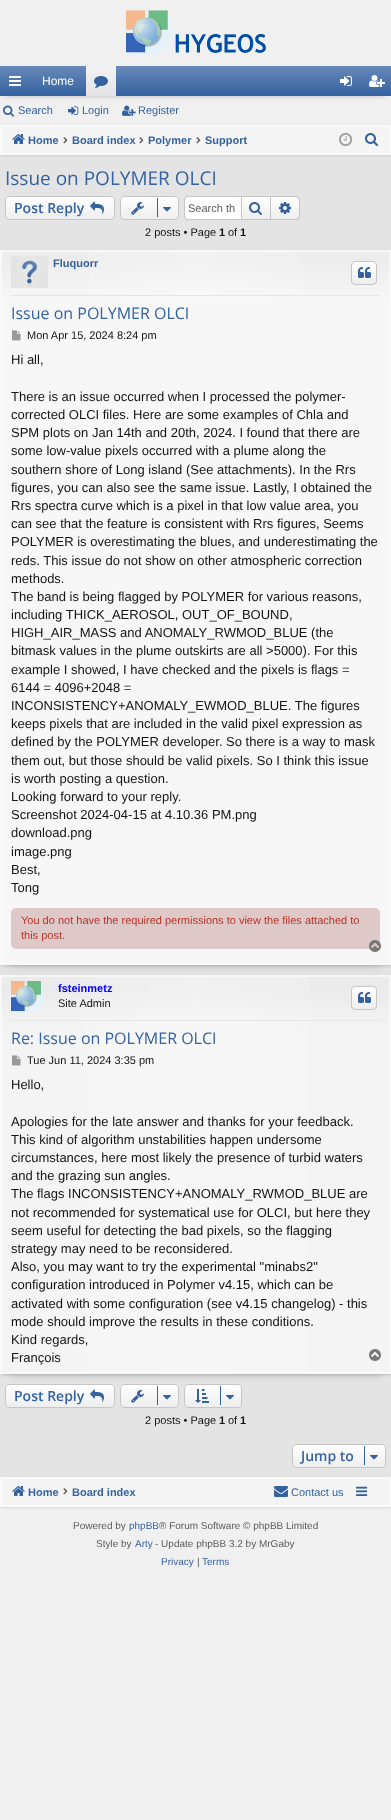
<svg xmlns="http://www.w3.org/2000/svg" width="391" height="1820">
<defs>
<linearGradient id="g1" gradientUnits="userSpaceOnUse" x1="196" y1="66" x2="196" y2="96"><stop offset="0" stop-color="#6789b8"/><stop offset="1" stop-color="#3462a0"/></linearGradient>
<linearGradient id="g2" gradientUnits="userSpaceOnUse" x1="101" y1="66" x2="101" y2="96"><stop offset="0" stop-color="#f2f2f2"/><stop offset="1" stop-color="#e4e4e4"/></linearGradient>
<clipPath id="clip1"><rect x="5" y="196" width="110" height="24" rx="4"/></clipPath>
<linearGradient id="g3" gradientUnits="userSpaceOnUse" x1="60" y1="197" x2="60" y2="219"><stop offset="0" stop-color="#fff"/><stop offset="1" stop-color="#fff" stop-opacity="0"/></linearGradient>
<clipPath id="clip2"><rect x="120" y="196" width="59" height="24" rx="4"/></clipPath>
<linearGradient id="g4" gradientUnits="userSpaceOnUse" x1="150" y1="197" x2="150" y2="219"><stop offset="0" stop-color="#fff"/><stop offset="1" stop-color="#fff" stop-opacity="0"/></linearGradient>
<linearGradient id="g5" gradientUnits="userSpaceOnUse" x1="256" y1="197" x2="256" y2="219"><stop offset="0" stop-color="#fff"/><stop offset="1" stop-color="#eee"/></linearGradient>
<linearGradient id="g6" gradientUnits="userSpaceOnUse" x1="285" y1="197" x2="285" y2="219"><stop offset="0" stop-color="#fff"/><stop offset="1" stop-color="#fff" stop-opacity="0"/></linearGradient>
<linearGradient id="g7" gradientUnits="userSpaceOnUse" x1="195" y1="251" x2="196" y2="964"><stop offset="0" stop-color="#eee"/><stop offset="0.01" stop-color="#ececec"/><stop offset="0.07" stop-color="#f7f7f7"/></linearGradient>
<linearGradient id="g8" gradientUnits="userSpaceOnUse" x1="1" y1="608" x2="390" y2="608"><stop offset="0" stop-color="#fff" stop-opacity="0"/><stop offset="0.5" stop-color="#fff" stop-opacity="0.3"/><stop offset="1" stop-color="#fff" stop-opacity="0"/></linearGradient>
<clipPath id="clip3"><rect x="351" y="261" width="26" height="24" rx="4"/></clipPath>
<linearGradient id="g9" gradientUnits="userSpaceOnUse" x1="364" y1="262" x2="364" y2="284"><stop offset="0" stop-color="#fff"/><stop offset="1" stop-color="#eee"/></linearGradient>
<clipPath id="clip4"><rect x="5" y="1384" width="110" height="24" rx="4"/></clipPath>
<linearGradient id="g10" gradientUnits="userSpaceOnUse" x1="60" y1="1385" x2="60" y2="1407"><stop offset="0" stop-color="#fff"/><stop offset="1" stop-color="#fff" stop-opacity="0"/></linearGradient>
<linearGradient id="g11" gradientUnits="userSpaceOnUse" x1="195" y1="976" x2="196" y2="1373"><stop offset="0" stop-color="#ececec"/><stop offset="0.03" stop-color="#eaeaea"/><stop offset="0.13" stop-color="#f4f4f4"/></linearGradient>
<linearGradient id="g12" gradientUnits="userSpaceOnUse" x1="1" y1="1175" x2="390" y2="1175"><stop offset="0" stop-color="#fff" stop-opacity="0"/><stop offset="0.5" stop-color="#fff" stop-opacity="0.3"/><stop offset="1" stop-color="#fff" stop-opacity="0"/></linearGradient>
<clipPath id="clip5"><rect x="351" y="986" width="26" height="24" rx="4"/></clipPath>
<linearGradient id="g13" gradientUnits="userSpaceOnUse" x1="364" y1="987" x2="364" y2="1009"><stop offset="0" stop-color="#fff"/><stop offset="1" stop-color="#eee"/></linearGradient>
<clipPath id="clip6"><rect x="120" y="1384" width="59" height="24" rx="4"/></clipPath>
<linearGradient id="g14" gradientUnits="userSpaceOnUse" x1="150" y1="1385" x2="150" y2="1407"><stop offset="0" stop-color="#fff"/><stop offset="1" stop-color="#fff" stop-opacity="0"/></linearGradient>
<clipPath id="clip7"><rect x="184" y="1384" width="58" height="24" rx="4"/></clipPath>
<linearGradient id="g15" gradientUnits="userSpaceOnUse" x1="213" y1="1385" x2="213" y2="1407"><stop offset="0" stop-color="#fff"/><stop offset="1" stop-color="#fff" stop-opacity="0"/></linearGradient>
<clipPath id="clip8"><rect x="292" y="1444" width="94" height="24" rx="4"/></clipPath>
<linearGradient id="g16" gradientUnits="userSpaceOnUse" x1="339" y1="1445" x2="339" y2="1467"><stop offset="0" stop-color="#fff"/><stop offset="1" stop-color="#fff" stop-opacity="0"/></linearGradient>
</defs>
<rect width="100%" height="100%" fill="#f0f0f0"/>
<image x="126" y="10" width="140" height="45" href="media/1.png"/>
<rect x="5" y="76" width="381" height="20" fill="#00000033" filter="blur(2.5px)"/>
<rect y="66" width="391" height="30" fill="url(#g1)"/>
<image x="9" y="76" width="12" height="10" href="media/2.png"/>
<text x="42" y="85" style="font-family:Liberation Sans;font-size:12px;fill:#fff">Home</text>
<rect x="86" y="66" width="30" height="30" fill="url(#g2)"/>
<image x="94" y="76" width="14" height="12" href="media/3.png"/>
<image x="340" y="76" width="12" height="10" href="media/4.png"/>
<image x="369" y="75" width="16" height="12" href="media/5.png"/>
<image x="3" y="105" width="12" height="12" href="media/6.png"/>
<text x="18" y="114" style="font-family:Liberation Sans;font-size:11px;fill:#3462a0">Search</text>
<image x="68" y="106" width="11" height="9" href="media/7.png"/>
<text x="82" y="114" style="font-family:Liberation Sans;font-size:11px;fill:#3462a0">Login</text>
<image x="122" y="105" width="14" height="11" href="media/8.png"/>
<text x="138" y="114" style="font-family:Liberation Sans;font-size:11px;fill:#3462a0">Register</text>
<rect y="155" width="391" height="1322" fill="#e4e4e4"/>
<rect x="1" y="126" width="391" height="30" fill="#0000001a" filter="blur(1px)"/>
<rect x="1.5" y="126.5" width="388" height="27" fill="#f4f4f4" stroke="#fafafa"/>
<rect x="0.5" y="125.5" width="390" height="29" fill="none" stroke="#f9f9f9"/>
<image x="12" y="134" width="13" height="10" href="media/9.png"/>
<text x="28" y="144" style="font-family:Liberation Sans;font-size:11px;font-weight:bold;fill:#3462a0">Home</text>
<image x="63" y="137" width="5" height="7" href="media/10.png"/>
<text x="72" y="144" style="font-family:Liberation Sans;font-size:11px;font-weight:bold;fill:#3462a0">Board index</text>
<image x="139" y="137" width="5" height="7" href="media/10.png"/>
<text x="148" y="144" style="font-family:Liberation Sans;font-size:11px;font-weight:bold;fill:#3462a0">Polymer</text>
<image x="196" y="137" width="5" height="7" href="media/10.png"/>
<text x="205" y="144" style="font-family:Liberation Sans;font-size:11px;font-weight:bold;fill:#3462a0">Support</text>
<image x="339" y="132" width="14" height="15" href="media/11.png"/>
<image x="365" y="133" width="13" height="13" href="media/12.png"/>
<text x="5" y="185" style="font-family:Open Sans;font-size:19px;fill:#3462a0">Issue on POLYMER OLCI</text>
<rect x="5" y="196" width="110" height="24" rx="4" fill="#eee"/>
<g clip-path="url(#clip1)">
<rect x="5" y="197" width="110" height="22" fill="url(#g3)"/>
</g>
<rect x="5.5" y="196.5" width="109" height="23" rx="3.5" fill="none" stroke="#c6c6c6"/>
<text x="14" y="213" style="font-family:Open Sans;font-size:14px;font-weight:600;fill:#3462a0">Post Reply</text>
<image x="90" y="201" width="14" height="13" href="media/13.png"/>
<rect x="120" y="196" width="59" height="24" rx="4" fill="#eee"/>
<g clip-path="url(#clip2)">
<rect x="120" y="197" width="59" height="22" fill="url(#g4)"/>
</g>
<rect x="120.5" y="196.5" width="58" height="23" rx="3.5" fill="none" stroke="#c6c6c6"/>
<image x="131" y="202" width="13" height="13" href="media/14.png"/>
<rect x="157" y="198" width="1" height="19" fill="#3462a0"/>
<image x="163" y="207" width="8" height="5" href="media/15.png"/>
<path d="M188 197h53v22h-53c-1.5 0-3-1.5-3-3v-16c0-1.5 1.5-3 3-3z" fill="#fff"/>
<path d="M188 196h53v24h-53c-2 0-4-2-4-4v-16c0-2 2-4 4-4zm0 1h53v22h-53c-2 0-3-1-3-3v-16c0-2 1-3 3-3z" fill="#c6c6c6" fill-rule="evenodd"/>
<text x="188" y="212" style="font-family:Liberation Sans;font-size:11px;fill:#5b5b5b">Search th</text>
<rect x="242" y="197" width="28" height="22" fill="url(#g5)"/>
<rect x="241.5" y="196.5" width="29" height="23" fill="none" stroke="#c6c6c6"/>
<image x="249" y="202" width="13" height="13" href="media/16.png"/>
<path d="M271 197h25c1.5 0 3 1.5 3 3v16c0 1.5-1.5 3-3 3h-25z" fill="#eee"/>
<path d="M271 197h25c1.5 0 3 1.5 3 3v16c0 1.5-1.5 3-3 3h-25z" fill="url(#g6)"/>
<path d="M271 196h25c2 0 4 2 4 4v16c0 2-2 4-4 4h-25zm0 1h25c1.5 0 3 1.5 3 3v16c0 1.5-1.5 3-3 3h-25z" fill="#c6c6c6" fill-rule="evenodd"/>
<image x="279" y="202" width="12" height="12" href="media/17.png"/>
<text x="145" y="236" style="font-family:Liberation Sans;font-size:11px;fill:#141414">2 posts • Page</text>
<text x="219" y="236" style="font-family:Liberation Sans;font-size:11px;font-weight:bold;fill:#141414">1</text>
<text x="228" y="236" style="font-family:Liberation Sans;font-size:11px;fill:#141414">of</text>
<text x="240" y="236" style="font-family:Liberation Sans;font-size:11px;font-weight:bold;fill:#141414">1</text>
<rect x="10" y="270" width="371" height="695" fill="#00000033" filter="blur(5px)"/>
<rect x="1" y="251" width="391" height="715" fill="#00000026" filter="blur(1.5px)"/>
<rect x="1" y="251" width="389" height="713" fill="url(#g7)"/>
<rect x="89" y="251" width="213" height="48" fill="url(#g8)"/>
<rect x="1.5" y="251.5" width="388" height="712" fill="none" stroke="#ffffff80"/>
<rect x="0.5" y="250.5" width="390" height="714" fill="none" stroke="#f9f9f9"/>
<rect x="11" y="295" width="369" height="1" fill="#e7e7e7"/>
<image x="11" y="256" width="37" height="32" href="media/18.png"/>
<text x="53" y="267" style="font-family:Liberation Sans;font-size:11px;font-weight:bold;fill:#3462a0">Fluquorr</text>
<g clip-path="url(#clip3)">
<rect x="351" y="262" width="26" height="22" fill="url(#g9)"/>
</g>
<rect x="351.5" y="261.5" width="25" height="23" rx="3.5" fill="none" stroke="#c6c6c6"/>
<image x="358" y="267" width="13" height="11" href="media/19.png"/>
<text x="11" y="319" style="font-family:Open Sans;font-size:16px;fill:#3462a0">Issue on POLYMER OLCI</text>
<image x="12" y="330" width="9" height="11" href="media/20.png"/>
<text x="27" y="339" style="font-family:Liberation Sans;font-size:11px;fill:#141414">Mon Apr 15, 2024 8:24 pm</text>
<text x="11" y="364" style="font-family:Liberation Sans;font-size:13px;fill:#141414">Hi all,</text>
<text x="11" y="401" style="font-family:Liberation Sans;font-size:13px;fill:#141414">There is an issue occurred when I processed the polymer-</text>
<text x="11" y="419" style="font-family:Liberation Sans;font-size:13px;fill:#141414">corrected OLCI files. Here are some examples of Chla and</text>
<text x="11" y="437" style="font-family:Liberation Sans;font-size:13px;fill:#141414">SPM plots on Jan 14th and 20th, 2024. I found that there are</text>
<text x="11" y="455" style="font-family:Liberation Sans;font-size:13px;fill:#141414">some low-value pixels occurred with a plume along the</text>
<text x="11" y="474" style="font-family:Liberation Sans;font-size:13px;fill:#141414">southern shore of Long island (See attachments). In the Rrs</text>
<text x="11" y="492" style="font-family:Liberation Sans;font-size:13px;fill:#141414">figures, you can also see the same issue. Lastly, I obtained the</text>
<text x="11" y="510" style="font-family:Liberation Sans;font-size:13px;fill:#141414">Rrs spectra curve which is a pixel in that low value area, you</text>
<text x="11" y="528" style="font-family:Liberation Sans;font-size:13px;fill:#141414">can see that the feature is consistent with Rrs figures, Seems</text>
<text x="11" y="546" style="font-family:Liberation Sans;font-size:13px;fill:#141414">POLYMER is overestimating the blues, and underestimating the</text>
<text x="11" y="565" style="font-family:Liberation Sans;font-size:13px;fill:#141414">reds. This issue do not show on other atmospheric correction</text>
<text x="11" y="583" style="font-family:Liberation Sans;font-size:13px;fill:#141414">methods.</text>
<text x="11" y="601" style="font-family:Liberation Sans;font-size:13px;fill:#141414">The band is being flagged by POLYMER for various reasons,</text>
<text x="11" y="619" style="font-family:Liberation Sans;font-size:13px;fill:#141414">including THICK_AEROSOL, OUT_OF_BOUND,</text>
<text x="11" y="637" style="font-family:Liberation Sans;font-size:13px;fill:#141414">HIGH_AIR_MASS and ANOMALY_RWMOD_BLUE (the</text>
<text x="11" y="655" style="font-family:Liberation Sans;font-size:13px;fill:#141414">bitmask values in the plume outskirts are all &gt;5000). For this</text>
<text x="11" y="674" style="font-family:Liberation Sans;font-size:13px;fill:#141414">example I showed, I have checked and the pixels is flags =</text>
<text x="11" y="692" style="font-family:Liberation Sans;font-size:13px;fill:#141414">6144 = 4096+2048 =</text>
<text x="11" y="710" style="font-family:Liberation Sans;font-size:13px;fill:#141414">INCONSISTENCY+ANOMALY_EWMOD_BLUE. The figures</text>
<text x="11" y="728" style="font-family:Liberation Sans;font-size:13px;fill:#141414">keeps pixels that are included in the valid pixel expression as</text>
<text x="11" y="746" style="font-family:Liberation Sans;font-size:13px;fill:#141414">defined by the POLYMER developer. So there is a way to mask</text>
<text x="11" y="765" style="font-family:Liberation Sans;font-size:13px;fill:#141414">them out, but those should be valid pixels. So I think this issue</text>
<text x="11" y="783" style="font-family:Liberation Sans;font-size:13px;fill:#141414">is worth posting a question.</text>
<text x="11" y="801" style="font-family:Liberation Sans;font-size:13px;fill:#141414">Looking forward to your reply.</text>
<text x="11" y="819" style="font-family:Liberation Sans;font-size:13px;fill:#141414">Screenshot 2024-04-15 at 4.10.36 PM.png</text>
<text x="11" y="837" style="font-family:Liberation Sans;font-size:13px;fill:#141414">download.png</text>
<text x="11" y="856" style="font-family:Liberation Sans;font-size:13px;fill:#141414">image.png</text>
<text x="11" y="874" style="font-family:Liberation Sans;font-size:13px;fill:#141414">Best,</text>
<text x="11" y="892" style="font-family:Liberation Sans;font-size:13px;fill:#141414">Tong</text>
<rect x="11" y="908" width="369" height="41" rx="5" fill="#dec9c8"/>
<text x="21" y="924" style="font-family:Liberation Sans;font-size:11px;fill:#b93329">You do not have the required permissions to view the files attached to</text>
<text x="21" y="939" style="font-family:Liberation Sans;font-size:11px;fill:#b93329">this post.</text>
<image x="369" y="940" width="12" height="12" href="media/21.png"/>
<rect x="5" y="1384" width="110" height="24" rx="4" fill="#eee"/>
<g clip-path="url(#clip4)">
<rect x="5" y="1385" width="110" height="22" fill="url(#g10)"/>
</g>
<rect x="5.5" y="1384.5" width="109" height="23" rx="3.5" fill="none" stroke="#c6c6c6"/>
<image x="90" y="1389" width="14" height="13" href="media/13.png"/>
<rect x="10" y="995" width="371" height="379" fill="#00000033" filter="blur(5px)"/>
<rect x="1" y="976" width="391" height="399" fill="#00000026" filter="blur(1.5px)"/>
<rect x="1" y="976" width="389" height="397" fill="url(#g11)"/>
<rect x="81" y="976" width="229" height="397" fill="url(#g12)"/>
<rect x="1.5" y="976.5" width="388" height="396" fill="none" stroke="#ffffff80"/>
<rect x="0.5" y="975.5" width="390" height="398" fill="none" stroke="#f9f9f9"/>
<rect x="11" y="1020" width="369" height="1" fill="#e7e7e7"/>
<image x="11" y="981" width="32" height="32" href="media/22.png"/>
<text x="58" y="992" style="font-family:Liberation Sans;font-size:11px;font-weight:bold;fill:#00f">fsteinmetz</text>
<text x="58" y="1007" style="font-family:Liberation Sans;font-size:11px;fill:#141414">Site Admin</text>
<g clip-path="url(#clip5)">
<rect x="351" y="987" width="26" height="22" fill="url(#g13)"/>
</g>
<rect x="351.5" y="986.5" width="25" height="23" rx="3.5" fill="none" stroke="#c6c6c6"/>
<image x="358" y="992" width="13" height="11" href="media/19.png"/>
<text x="11" y="1044" style="font-family:Open Sans;font-size:16px;fill:#3462a0">Re: Issue on POLYMER OLCI</text>
<image x="12" y="1055" width="9" height="11" href="media/23.png"/>
<text x="27" y="1064" style="font-family:Liberation Sans;font-size:11px;fill:#141414">Tue Jun 11, 2024 3:35 pm</text>
<text x="11" y="1089" style="font-family:Liberation Sans;font-size:13px;fill:#141414">Hello,</text>
<text x="11" y="1126" style="font-family:Liberation Sans;font-size:13px;fill:#141414">Apologies for the late answer and thanks for your feedback.</text>
<text x="11" y="1144" style="font-family:Liberation Sans;font-size:13px;fill:#141414">This kind of algorithm unstabilities happen undersome</text>
<text x="11" y="1162" style="font-family:Liberation Sans;font-size:13px;fill:#141414">circumstances, here most likely the presence of turbid waters</text>
<text x="11" y="1180" style="font-family:Liberation Sans;font-size:13px;fill:#141414">and the grazing sun angles.</text>
<text x="11" y="1198" style="font-family:Liberation Sans;font-size:13px;fill:#141414">The flags INCONSISTENCY+ANOMALY_RWMOD_BLUE are</text>
<text x="11" y="1217" style="font-family:Liberation Sans;font-size:13px;fill:#141414">not recommended for systematical use for OLCI, but here they</text>
<text x="11" y="1235" style="font-family:Liberation Sans;font-size:13px;fill:#141414">seem useful for detecting the bad pixels, so the flagging</text>
<text x="11" y="1253" style="font-family:Liberation Sans;font-size:13px;fill:#141414">strategy may need to be reconsidered.</text>
<text x="11" y="1271" style="font-family:Liberation Sans;font-size:13px;fill:#141414">Also, you may want to try the experimental "minabs2"</text>
<text x="11" y="1289" style="font-family:Liberation Sans;font-size:13px;fill:#141414">configuration introduced in Polymer v4.15, which can be</text>
<text x="11" y="1308" style="font-family:Liberation Sans;font-size:13px;fill:#141414">activated with some configuration (see v4.15 changelog) - this</text>
<text x="11" y="1326" style="font-family:Liberation Sans;font-size:13px;fill:#141414">mode should improve the results in these conditions.</text>
<text x="11" y="1344" style="font-family:Liberation Sans;font-size:13px;fill:#141414">Kind regards,</text>
<text x="11" y="1362" style="font-family:Liberation Sans;font-size:13px;fill:#141414">François</text>
<image x="369" y="1349" width="12" height="12" href="media/24.png"/>
<text x="14" y="1401" style="font-family:Open Sans;font-size:14px;font-weight:600;fill:#3462a0">Post Reply</text>
<rect x="120" y="1384" width="59" height="24" rx="4" fill="#eee"/>
<g clip-path="url(#clip6)">
<rect x="120" y="1385" width="59" height="22" fill="url(#g14)"/>
</g>
<rect x="120.5" y="1384.5" width="58" height="23" rx="3.5" fill="none" stroke="#c6c6c6"/>
<image x="131" y="1390" width="13" height="13" href="media/14.png"/>
<rect x="157" y="1386" width="1" height="19" fill="#3462a0"/>
<image x="163" y="1395" width="8" height="5" href="media/15.png"/>
<rect x="184" y="1384" width="58" height="24" rx="4" fill="#eee"/>
<g clip-path="url(#clip7)">
<rect x="184" y="1385" width="58" height="22" fill="url(#g15)"/>
</g>
<rect x="184.5" y="1384.5" width="57" height="23" rx="3.5" fill="none" stroke="#c6c6c6"/>
<image x="195" y="1389" width="14" height="14" href="media/25.png"/>
<rect x="220" y="1386" width="1" height="19" fill="#3462a0"/>
<image x="226" y="1395" width="8" height="5" href="media/15.png"/>
<text x="145" y="1424" style="font-family:Liberation Sans;font-size:11px;fill:#141414">2 posts • Page</text>
<text x="219" y="1424" style="font-family:Liberation Sans;font-size:11px;font-weight:bold;fill:#141414">1</text>
<text x="228" y="1424" style="font-family:Liberation Sans;font-size:11px;fill:#141414">of</text>
<text x="240" y="1424" style="font-family:Liberation Sans;font-size:11px;font-weight:bold;fill:#141414">1</text>
<rect x="292" y="1444" width="94" height="24" rx="4" fill="#eee"/>
<g clip-path="url(#clip8)">
<rect x="292" y="1445" width="94" height="22" fill="url(#g16)"/>
</g>
<rect x="292.5" y="1444.5" width="93" height="23" rx="3.5" fill="none" stroke="#c6c6c6"/>
<text x="301" y="1461" style="font-family:Open Sans;font-size:14px;font-weight:600;fill:#3462a0">Jump to</text>
<rect x="364" y="1446" width="1" height="19" fill="#3462a0"/>
<image x="370" y="1455" width="8" height="5" href="media/15.png"/>
<rect x="1" y="1478" width="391" height="30" fill="#0000001a" filter="blur(1px)"/>
<rect x="1.5" y="1478.5" width="388" height="27" fill="#f4f4f4" stroke="#fafafa"/>
<rect x="0.5" y="1477.5" width="390" height="29" fill="none" stroke="#f9f9f9"/>
<image x="12" y="1486" width="13" height="10" href="media/9.png"/>
<text x="28" y="1496" style="font-family:Liberation Sans;font-size:11px;font-weight:bold;fill:#3462a0">Home</text>
<image x="63" y="1488" width="5" height="7" href="media/10.png"/>
<text x="72" y="1496" style="font-family:Liberation Sans;font-size:11px;font-weight:bold;fill:#3462a0">Board index</text>
<image x="274" y="1486" width="14" height="11" href="media/26.png"/>
<text x="291" y="1496" style="font-family:Liberation Sans;font-size:11px;fill:#3462a0">Contact us</text>
<image x="356" y="1486" width="12" height="10" href="media/27.png"/>
<text x="73" y="1529" style="font-family:Liberation Sans;font-size:10px;fill:#5b5b5b">Powered by</text>
<text x="129" y="1529" style="font-family:Liberation Sans;font-size:10px;fill:#3462a0">phpBB</text>
<text x="159" y="1529" style="font-family:Liberation Sans;font-size:10px;fill:#5b5b5b">® Forum Software © phpBB Limited</text>
<text x="96" y="1547" style="font-family:Liberation Sans;font-size:10px;fill:#5b5b5b">Style by</text>
<text x="135" y="1547" style="font-family:Liberation Sans;font-size:10px;fill:#3462a0">Arty</text>
<text x="155" y="1547" style="font-family:Liberation Sans;font-size:10px;fill:#5b5b5b">- Update phpBB 3.2 by MrGaby</text>
<text x="161" y="1565" style="font-family:Liberation Sans;font-size:10px;fill:#3462a0">Privacy</text>
<text x="197" y="1565" style="font-family:Liberation Sans;font-size:10px;fill:#5b5b5b">|</text>
<text x="202" y="1565" style="font-family:Liberation Sans;font-size:10px;fill:#3462a0">Terms</text>
</svg>
